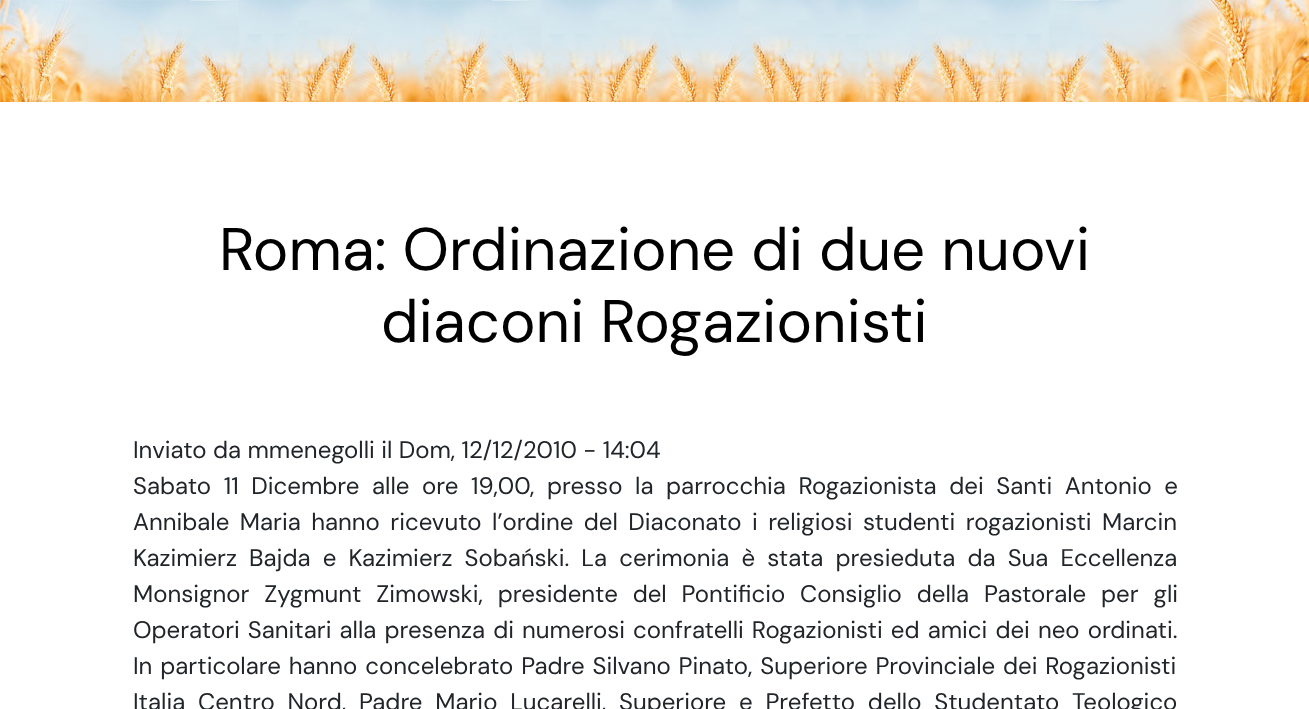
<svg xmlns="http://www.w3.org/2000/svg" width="1309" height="709">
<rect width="100%" height="100%" fill="#fff"/>
<image x="0" y="0" width="1309" height="102" href="media/1.png"/>
<text x="219" y="270" style="font-family:DM Sans;font-size:60px;fill:#000">Roma: Ordinazione di due nuovi</text>
<text x="381" y="342" style="font-family:DM Sans;font-size:60px;fill:#000">diaconi Rogazionisti</text>
<text x="133" y="458" style="font-family:DM Sans;font-size:24px;fill:#212529">Inviato da mmenegolli il Dom, 12/12/2010 - 14:04</text>
<text x="133" y="494" word-spacing="6.25" style="font-family:DM Sans;font-size:24px;fill:#212529">Sabato 11 Dicembre alle ore 19,00, presso la parrocchia Rogazionista dei Santi Antonio e</text>
<text x="133" y="530" word-spacing="4.1" style="font-family:DM Sans;font-size:24px;fill:#212529">Annibale Maria hanno ricevuto l’ordine del Diaconato i religiosi studenti rogazionisti Marcin</text>
<text x="133" y="566" word-spacing="5.75" style="font-family:DM Sans;font-size:24px;fill:#212529">Kazimierz Bajda e Kazimierz Sobański. La cerimonia è stata presieduta da Sua Eccellenza</text>
<text x="133" y="602" word-spacing="8.5" style="font-family:DM Sans;font-size:24px;fill:#212529">Monsignor Zygmunt Zimowski, presidente del Pontificio Consiglio della Pastorale per gli</text>
<text x="133" y="638" word-spacing="1.7" style="font-family:DM Sans;font-size:24px;fill:#212529">Operatori Sanitari alla presenza di numerosi confratelli Rogazionisti ed amici dei neo ordinati.</text>
<text x="133" y="674" word-spacing="1.5" style="font-family:DM Sans;font-size:24px;fill:#212529">In particolare hanno concelebrato Padre Silvano Pinato, Superiore Provinciale dei Rogazionisti</text>
<text x="133" y="710" word-spacing="6.4" style="font-family:DM Sans;font-size:24px;fill:#212529">Italia Centro Nord, Padre Mario Lucarelli, Superiore e Prefetto dello Studentato Teologico</text>
</svg>
